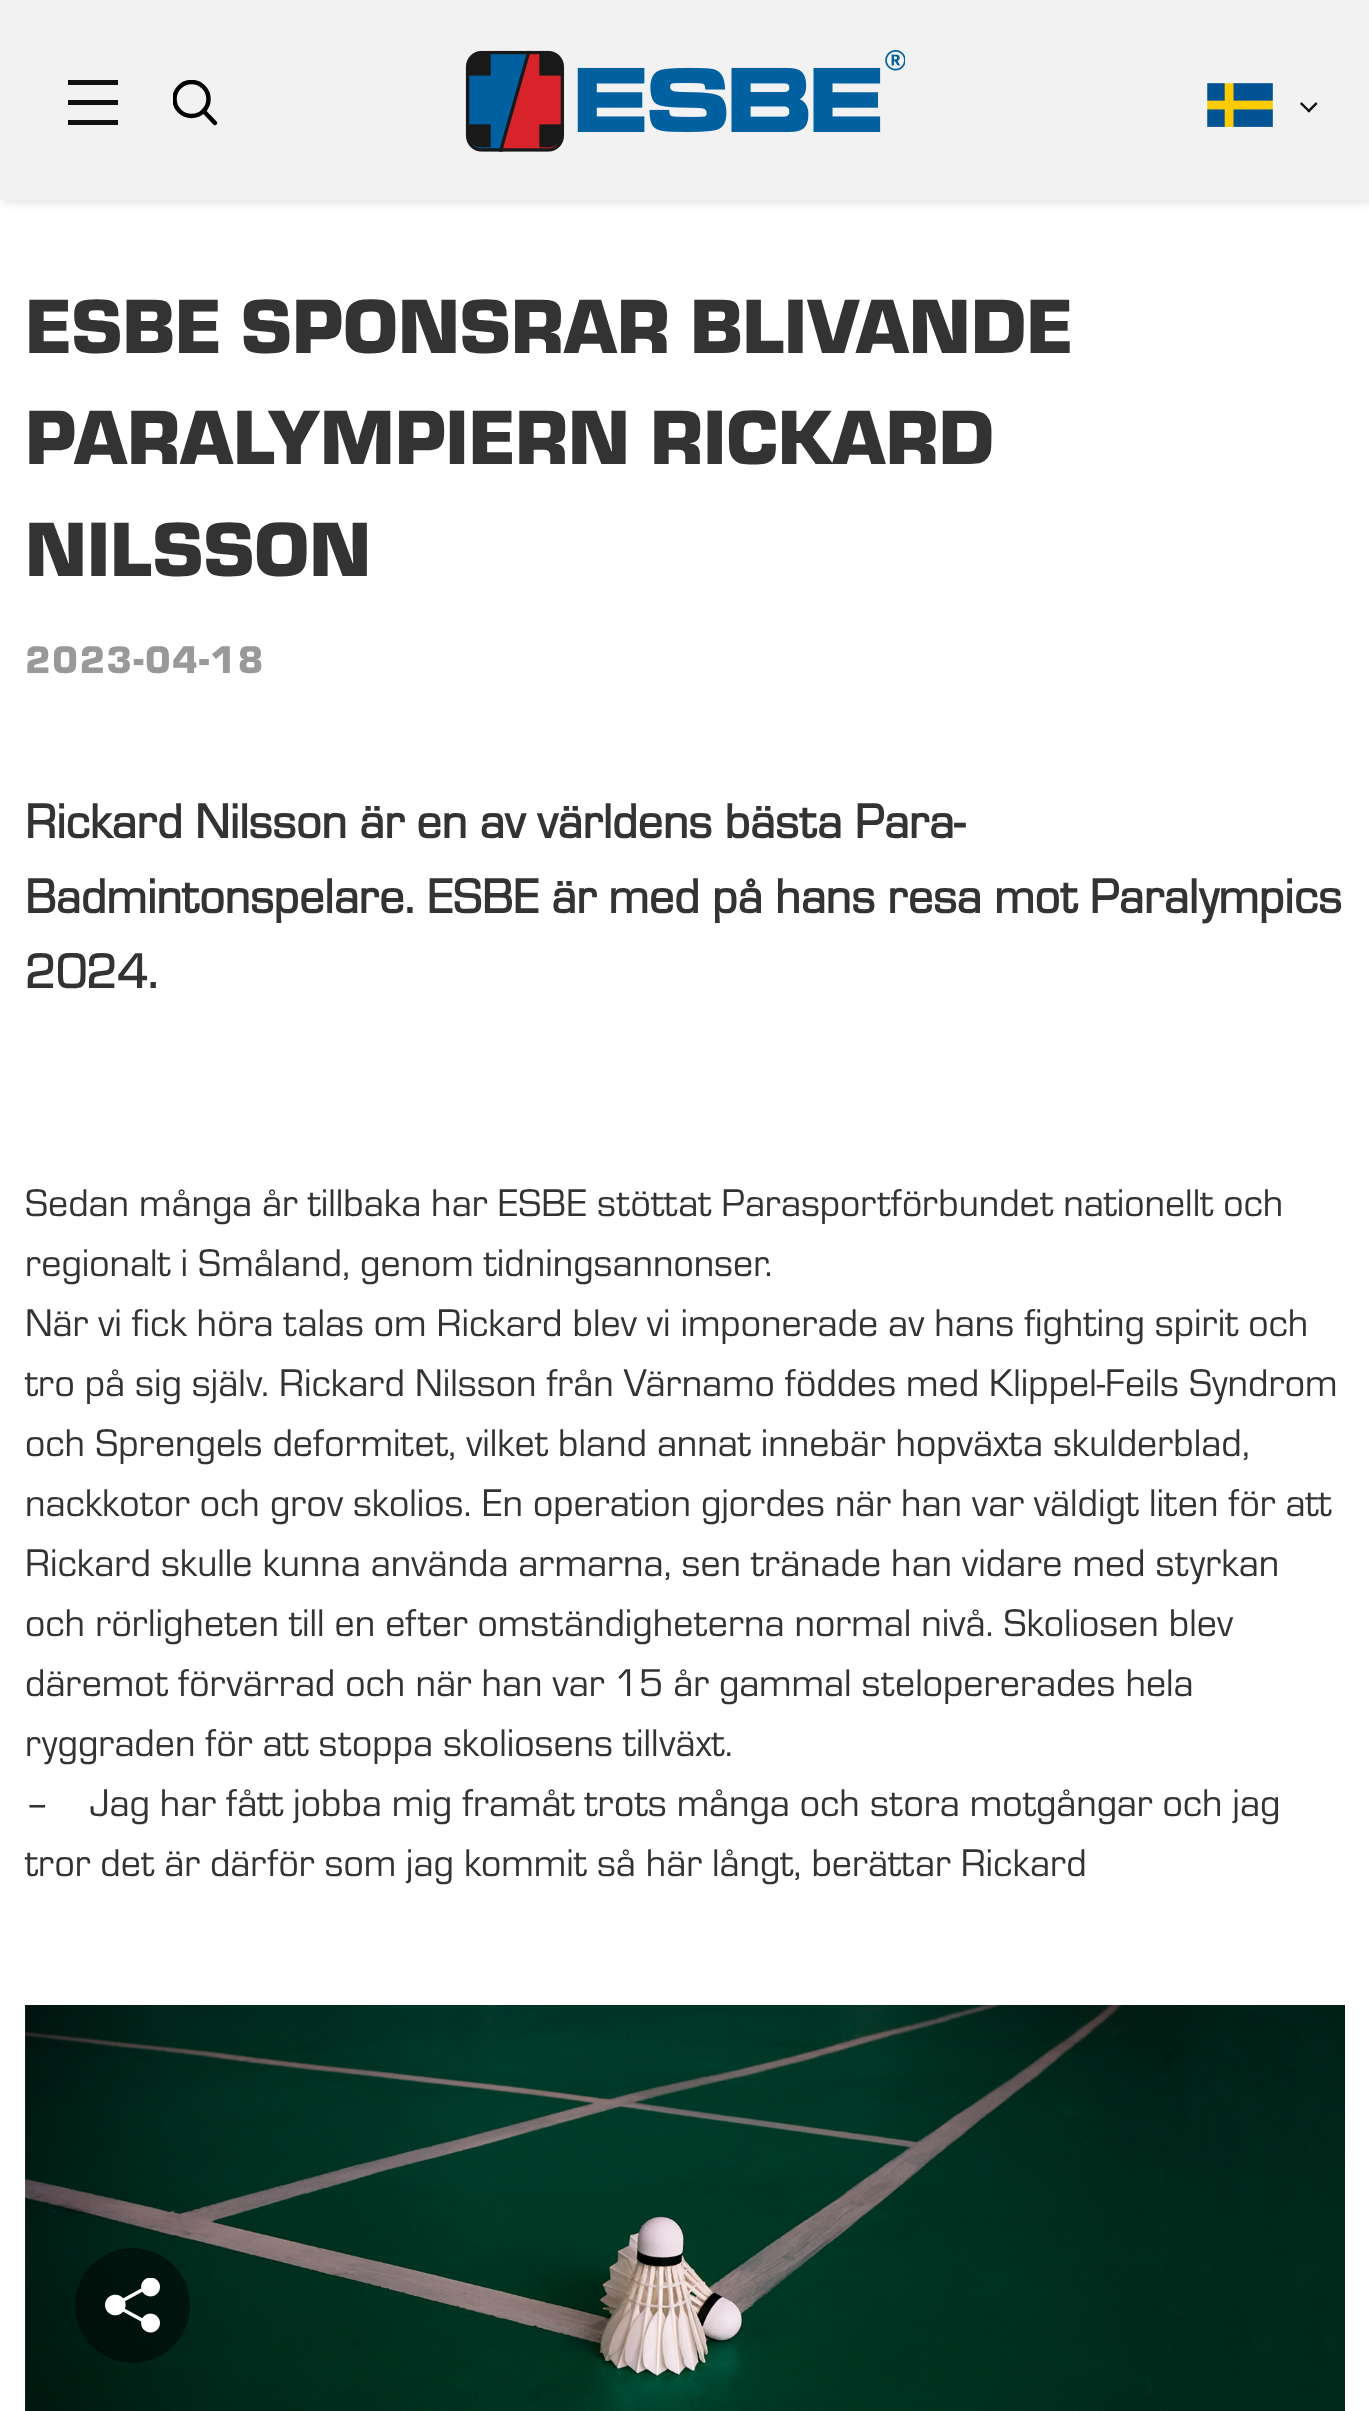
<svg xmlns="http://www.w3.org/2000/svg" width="1369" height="2411">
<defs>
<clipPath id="clip1"><rect x="173" y="80" width="45" height="45"/></clipPath>
</defs>
<rect width="100%" height="100%" fill="#fff"/>
<rect x="3" y="3" width="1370" height="200" fill="#0000001a" filter="blur(4px)"/>
<rect width="1369" height="200" fill="#f2f2f2"/>
<rect x="68" y="80" width="50" height="5" fill="#111"/>
<rect x="68" y="100" width="50" height="5" fill="#111"/>
<rect x="68" y="120" width="50" height="5" fill="#111"/>
<image x="465" y="50" width="440" height="102" href="media/1.png"/>
<g clip-path="url(#clip1)">
<circle cx="191.5" cy="99" r="17" fill="none" stroke="#000" stroke-width="4.5"/>
</g>
<path d="M215 123l-11.5-12" fill="none" stroke="#000" stroke-width="4.5" stroke-linecap="round" stroke-linejoin="round"/>
<image x="1207" y="83" width="66" height="44" href="media/2.png"/>
<path d="M1316 102l1.5 2l-8.5 8.5l-2-1.5z" fill="#111"/>
<path d="M1301.5 102l9 9l-1.5 1.5l-9-8.5z" fill="#111"/>
<text x="25" y="353" style="font-family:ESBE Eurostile;font-size:80px;font-weight:bold;fill:#333">ESBE SPONSRAR BLIVANDE</text>
<text x="25" y="464" style="font-family:ESBE Eurostile;font-size:80px;font-weight:bold;fill:#333">PARALYMPIERN RICKARD</text>
<text x="25" y="576" style="font-family:ESBE Eurostile;font-size:80px;font-weight:bold;fill:#333">NILSSON</text>
<text x="25" y="673" style="font-family:ESBE Eurostile;font-size:40px;font-weight:bold;letter-spacing:1.6px;fill:#999">2023-04-18</text>
<text x="25" y="838" style="font-family:'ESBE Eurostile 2';font-size:50px;font-weight:bold;fill:#333">Rickard Nilsson är en av världens bästa Para-</text>
<text x="25" y="913" style="font-family:'ESBE Eurostile 2';font-size:50px;font-weight:bold;fill:#333">Badmintonspelare. ESBE är med på hans resa mot Paralympics</text>
<text x="25" y="988" style="font-family:'ESBE Eurostile 2';font-size:50px;font-weight:bold;fill:#333">2024.</text>
<text x="25" y="1216" style="font-family:ESBE Eurostile;font-size:40px;fill:#333">Sedan många år tillbaka har ESBE stöttat Parasportförbundet nationellt och</text>
<text x="25" y="1276" style="font-family:ESBE Eurostile;font-size:40px;fill:#333">regionalt i Småland, genom tidningsannonser.</text>
<text x="25" y="1336" style="font-family:ESBE Eurostile;font-size:40px;fill:#333">När vi fick höra talas om Rickard blev vi imponerade av hans fighting spirit och</text>
<text x="25" y="1396" style="font-family:ESBE Eurostile;font-size:40px;fill:#333">tro på sig själv. Rickard Nilsson från Värnamo föddes med Klippel-Feils Syndrom</text>
<text x="25" y="1456" style="font-family:ESBE Eurostile;font-size:40px;fill:#333">och Sprengels deformitet, vilket bland annat innebär hopväxta skulderblad,</text>
<text x="25" y="1516" style="font-family:ESBE Eurostile;font-size:40px;fill:#333">nackkotor och grov skolios. En operation gjordes när han var väldigt liten för att</text>
<text x="25" y="1576" style="font-family:ESBE Eurostile;font-size:40px;fill:#333">Rickard skulle kunna använda armarna, sen tränade han vidare med styrkan</text>
<text x="25" y="1636" style="font-family:ESBE Eurostile;font-size:40px;fill:#333">och rörligheten till en efter omständigheterna normal nivå. Skoliosen blev</text>
<text x="25" y="1696" style="font-family:ESBE Eurostile;font-size:40px;fill:#333">däremot förvärrad och när han var 15 år gammal stelopererades hela</text>
<text x="25" y="1756" style="font-family:ESBE Eurostile;font-size:40px;fill:#333">ryggraden för att stoppa skoliosens tillväxt.</text>
<text x="25" y="1816" style="font-family:ESBE Eurostile;font-size:40px;fill:#333" xml:space="preserve">–    Jag har fått jobba mig framåt trots många och stora motgångar och jag</text>
<text x="25" y="1876" style="font-family:ESBE Eurostile;font-size:40px;fill:#333">tror det är därför som jag kommit så här långt, berättar Rickard</text>
<image x="25" y="2005" width="1320" height="406" href="media/3.png"/>
<circle cx="132.5" cy="2305.5" r="57.5" fill="#00000080"/>
<image x="105" y="2278" width="55" height="55" href="media/4.png"/>
</svg>
